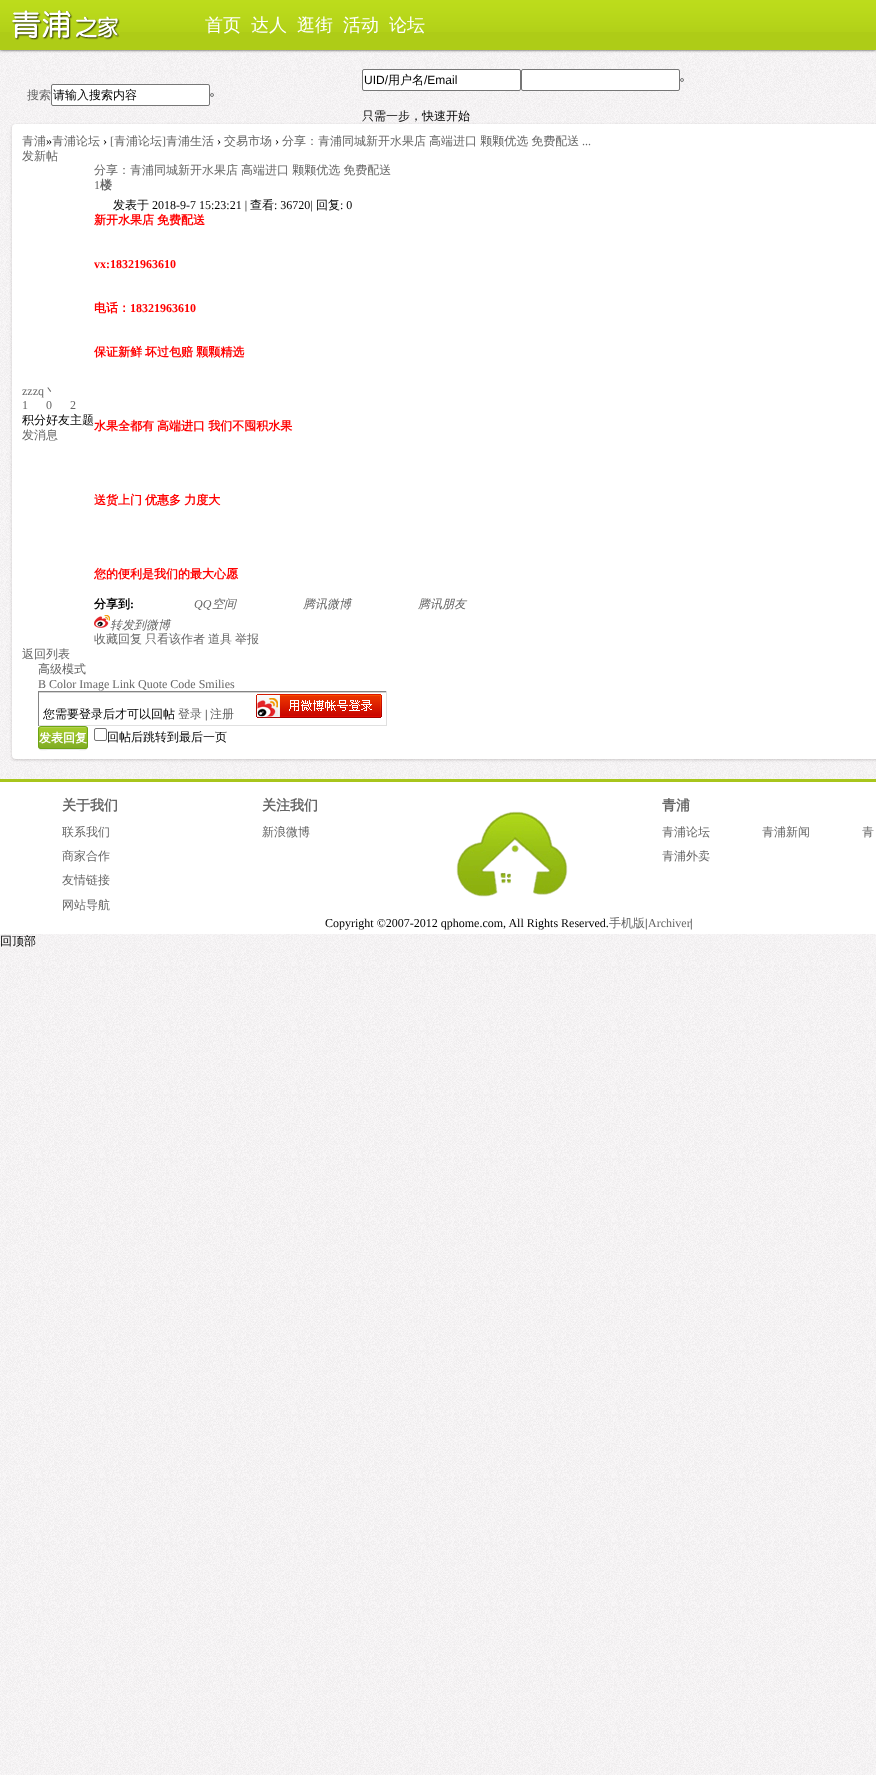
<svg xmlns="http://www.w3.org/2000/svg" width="876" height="1775">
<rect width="100%" height="100%" fill="#fff"/>
<image x="0" y="50" width="876" height="1725" href="media/1.png"/>
<rect width="876" height="50" fill="#000000cc" filter="blur(1.5px)"/>
<rect y="32" width="876" height="18" fill="#aecc17"/>
<image x="0" y="0" width="876" height="32" href="media/2.png"/>
<image x="12" y="10" width="108" height="30" href="media/3.png"/>
<text x="205" y="31" style="font-family:WenQuanYi Zen Hei;font-size:18px;font-weight:500;fill:#fff">首页</text>
<text x="251" y="31" style="font-family:WenQuanYi Zen Hei;font-size:18px;font-weight:500;fill:#fff">达人</text>
<text x="297" y="31" style="font-family:WenQuanYi Zen Hei;font-size:18px;font-weight:500;fill:#fff">逛街</text>
<text x="343" y="31" style="font-family:WenQuanYi Zen Hei;font-size:18px;font-weight:500;fill:#fff">活动</text>
<text x="389" y="31" style="font-family:WenQuanYi Zen Hei;font-size:18px;font-weight:500;fill:#fff">论坛</text>
<text x="27" y="99" style="font-family:WenQuanYi Zen Hei;font-size:12px;font-weight:500;fill:#666">搜索</text>
<rect x="51.5" y="84.5" width="158" height="21" rx="1.5" fill="#fff" stroke="#767676"/>
<text x="53" y="99" style="font-family:WenQuanYi Zen Hei;font-size:12px;font-weight:500;fill:#000">请输入搜索内容</text>
<circle cx="212" cy="95" r="1.5" fill="#efefef" stroke="#767676"/>
<rect x="362.5" y="69.5" width="158" height="21" rx="1.5" fill="#fff" stroke="#767676"/>
<text x="364" y="84" style="font-family:Liberation Sans;font-size:12px;fill:#000">UID/</text>
<text x="388" y="84" style="font-family:WenQuanYi Zen Hei;font-size:12px;font-weight:500;fill:#000">用户名</text>
<text x="424" y="84" style="font-family:Liberation Sans;font-size:12px;fill:#000">/Email</text>
<rect x="521.5" y="69.5" width="158" height="21" rx="1.5" fill="#fff" stroke="#767676"/>
<circle cx="682" cy="80" r="1.5" fill="#efefef" stroke="#767676"/>
<rect x="12" y="125" width="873" height="635" rx="4" fill="#22191933" filter="blur(1.5px)"/>
<text x="362" y="120" style="font-family:WenQuanYi Zen Hei;font-size:12px;font-weight:500;fill:#000">只需一步，快速开始</text>
<rect x="12" y="124" width="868" height="635" rx="4" fill="#fff"/>
<text x="22" y="145" style="font-family:WenQuanYi Zen Hei;font-size:12px;font-weight:500;fill:#666">青浦</text>
<text x="46" y="145" style="font-family:Liberation Serif;font-size:12px;fill:#000">»</text>
<text x="52" y="145" style="font-family:WenQuanYi Zen Hei;font-size:12px;font-weight:500;fill:#666">青浦论坛</text>
<text x="103" y="145" style="font-family:Liberation Serif;font-size:12px;fill:#000">›</text>
<text x="110" y="145" style="font-family:Liberation Serif;font-size:12px;fill:#666">[</text>
<text x="114" y="145" style="font-family:WenQuanYi Zen Hei;font-size:12px;font-weight:500;fill:#666">青浦论坛</text>
<text x="162" y="145" style="font-family:Liberation Serif;font-size:12px;fill:#666">]</text>
<text x="166" y="145" style="font-family:WenQuanYi Zen Hei;font-size:12px;font-weight:500;fill:#666">青浦生活</text>
<text x="217" y="145" style="font-family:Liberation Serif;font-size:12px;fill:#000">›</text>
<text x="224" y="145" style="font-family:WenQuanYi Zen Hei;font-size:12px;font-weight:500;fill:#666">交易市场</text>
<text x="275" y="145" style="font-family:Liberation Serif;font-size:12px;fill:#000">›</text>
<text x="282" y="145" word-spacing="-0.5" style="font-family:WenQuanYi Zen Hei;font-size:12px;font-weight:500;fill:#666">分享：青浦同城新开水果店 高端进口 颗颗优选 免费配送</text>
<text x="582" y="145" style="font-family:Liberation Serif;font-size:12px;fill:#666">...</text>
<text x="22" y="160" style="font-family:WenQuanYi Zen Hei;font-size:12px;font-weight:500;fill:#666">发新帖</text>
<text x="22" y="395" style="font-family:Liberation Serif;font-size:12px;fill:#666">zzzq</text>
<text x="44" y="395" style="font-family:WenQuanYi Zen Hei;font-size:12px;font-weight:500;fill:#666">丶</text>
<text x="22" y="409" style="font-family:Liberation Serif;font-size:12px;fill:#666">1</text>
<text x="22" y="424" style="font-family:WenQuanYi Zen Hei;font-size:12px;font-weight:500;fill:#000">积分好友主题</text>
<text x="46" y="409" style="font-family:Liberation Serif;font-size:12px;fill:#666">0</text>
<text x="70" y="409" style="font-family:Liberation Serif;font-size:12px;fill:#666">2</text>
<text x="22" y="439" style="font-family:WenQuanYi Zen Hei;font-size:12px;font-weight:500;fill:#666">发消息</text>
<text x="94" y="174" word-spacing="-0.5" style="font-family:WenQuanYi Zen Hei;font-size:12px;font-weight:500;fill:#666">分享：青浦同城新开水果店 高端进口 颗颗优选 免费配送</text>
<text x="94" y="189" style="font-family:Liberation Serif;font-size:12px;fill:#666">1</text>
<text x="100" y="189" style="font-family:WenQuanYi Zen Hei;font-size:12px;font-weight:bold;fill:#666">楼</text>
<text x="113" y="209" style="font-family:WenQuanYi Zen Hei;font-size:12px;font-weight:500;fill:#000">发表于</text>
<text x="152" y="209" style="font-family:Liberation Serif;font-size:12px;fill:#000">2018-9-7 15:23:21 |</text>
<text x="250" y="209" style="font-family:WenQuanYi Zen Hei;font-size:12px;font-weight:500;fill:#000">查看</text>
<text x="274" y="209" style="font-family:Liberation Serif;font-size:12px;fill:#000">: 36720|</text>
<text x="316" y="209" style="font-family:WenQuanYi Zen Hei;font-size:12px;font-weight:500;fill:#000">回复</text>
<text x="340" y="209" style="font-family:Liberation Serif;font-size:12px;fill:#000">: 0</text>
<text x="94" y="224" word-spacing="-0.5" style="font-family:WenQuanYi Zen Hei;font-size:12px;font-weight:bold;fill:#f00">新开水果店 免费配送</text>
<text x="94" y="268" style="font-family:Liberation Serif;font-size:12px;font-weight:bold;fill:#f00">vx:18321963610</text>
<text x="94" y="312" style="font-family:WenQuanYi Zen Hei;font-size:12px;font-weight:bold;fill:#f00">电话：</text>
<text x="130" y="312" style="font-family:Liberation Serif;font-size:12px;font-weight:bold;fill:#f00">18321963610</text>
<text x="94" y="356" word-spacing="-0.5" style="font-family:WenQuanYi Zen Hei;font-size:12px;font-weight:bold;fill:#f00">保证新鲜 坏过包赔 颗颗精选</text>
<text x="94" y="430" word-spacing="-0.5" style="font-family:WenQuanYi Zen Hei;font-size:12px;font-weight:bold;fill:#f00">水果全都有 高端进口 我们不囤积水果</text>
<text x="94" y="504" word-spacing="-0.5" style="font-family:WenQuanYi Zen Hei;font-size:12px;font-weight:bold;fill:#f00">送货上门 优惠多 力度大</text>
<text x="94" y="578" style="font-family:WenQuanYi Zen Hei;font-size:12px;font-weight:bold;fill:#f00">您的便利是我们的最大心愿</text>
<text x="94" y="608" style="font-family:WenQuanYi Zen Hei;font-size:12px;font-weight:bold;fill:#000">分享到</text>
<text x="130" y="608" style="font-family:Liberation Serif;font-size:12px;font-weight:bold;fill:#000">:</text>
<text x="194" y="608" style="font-family:Liberation Serif;font-size:12px;font-style:italic;fill:#666">QQ</text>
<text x="212" y="608" style="font-family:WenQuanYi Zen Hei;font-size:12px;font-weight:500;font-style:italic;fill:#666">空间</text>
<text x="303" y="608" style="font-family:WenQuanYi Zen Hei;font-size:12px;font-weight:500;font-style:italic;fill:#666">腾讯微博</text>
<text x="418" y="608" style="font-family:WenQuanYi Zen Hei;font-size:12px;font-weight:500;font-style:italic;fill:#666">腾讯朋友</text>
<image x="94" y="615" width="16" height="13" href="media/4.png"/>
<text x="110" y="629" style="font-family:WenQuanYi Zen Hei;font-size:12px;font-weight:500;font-style:italic;fill:#666">转发到微博</text>
<text x="94" y="643" style="font-family:WenQuanYi Zen Hei;font-size:12px;font-weight:500;fill:#666">收藏回复</text>
<text x="145" y="643" style="font-family:WenQuanYi Zen Hei;font-size:12px;font-weight:500;fill:#666">只看该作者</text>
<text x="208" y="643" style="font-family:WenQuanYi Zen Hei;font-size:12px;font-weight:500;fill:#666">道具</text>
<text x="235" y="643" style="font-family:WenQuanYi Zen Hei;font-size:12px;font-weight:500;fill:#666">举报</text>
<text x="22" y="658" style="font-family:WenQuanYi Zen Hei;font-size:12px;font-weight:500;fill:#666">返回列表</text>
<text x="38" y="673" style="font-family:WenQuanYi Zen Hei;font-size:12px;font-weight:500;fill:#666">高级模式</text>
<text x="38" y="688" style="font-family:Liberation Serif;font-size:12px;fill:#666">B Color Image Link Quote Code Smilies</text>
<rect x="38" y="692" width="349" height="1" fill="#d4d4d4"/>
<rect x="38" y="691" width="349" height="1" fill="#848484"/>
<rect x="386" y="691" width="1" height="35" fill="#e0e0e0"/>
<rect x="38" y="725" width="349" height="1" fill="#e0e0e0"/>
<rect x="38" y="691" width="1" height="35" fill="#848484"/>
<text x="43" y="718" style="font-family:WenQuanYi Zen Hei;font-size:12px;font-weight:500;fill:#000">您需要登录后才可以回帖</text>
<text x="178" y="718" style="font-family:WenQuanYi Zen Hei;font-size:12px;font-weight:500;fill:#666">登录</text>
<text x="205" y="718" style="font-family:Liberation Serif;font-size:12px;fill:#000">|</text>
<text x="210" y="718" style="font-family:WenQuanYi Zen Hei;font-size:12px;font-weight:500;fill:#666">注册</text>
<image x="256" y="694" width="126" height="24" href="media/5.png"/>
<path d="M38 746c0 6 6 4 10 4h30c4 0 10 2 10-4c0 2-1 3-3 3h-44c-2 0-3-1-3-3z" fill="#e5e5e5"/>
<image x="38" y="726" width="50" height="23" href="media/6.png"/>
<rect x="38.5" y="726.5" width="49" height="22" rx="2.5" fill="none" stroke="#6ca315"/>
<text x="39" y="742" style="font-family:WenQuanYi Zen Hei;font-size:12px;font-weight:bold;fill:#fff">发表回复</text>
<rect x="94.5" y="728.5" width="12" height="12" rx="1.5" fill="none" stroke="#767676"/>
<text x="107" y="741" style="font-family:WenQuanYi Zen Hei;font-size:12px;font-weight:500;fill:#000">回帖后跳转到最后一页</text>
<rect y="782" width="876" height="152" fill="#fff"/>
<rect y="779" width="876" height="3" fill="#a8c51c"/>
<image x="456" y="811" width="112" height="86" href="media/7.png"/>
<text x="62" y="810" style="font-family:WenQuanYi Zen Hei;font-size:14px;font-weight:bold;fill:#666">关于我们</text>
<text x="62" y="836" style="font-family:WenQuanYi Zen Hei;font-size:12px;font-weight:500;fill:#666">联系我们</text>
<text x="62" y="860" style="font-family:WenQuanYi Zen Hei;font-size:12px;font-weight:500;fill:#666">商家合作</text>
<text x="62" y="884" style="font-family:WenQuanYi Zen Hei;font-size:12px;font-weight:500;fill:#666">友情链接</text>
<text x="62" y="909" style="font-family:WenQuanYi Zen Hei;font-size:12px;font-weight:500;fill:#666">网站导航</text>
<text x="262" y="810" style="font-family:WenQuanYi Zen Hei;font-size:14px;font-weight:bold;fill:#666">关注我们</text>
<text x="262" y="836" style="font-family:WenQuanYi Zen Hei;font-size:12px;font-weight:500;fill:#666">新浪微博</text>
<text x="662" y="810" style="font-family:WenQuanYi Zen Hei;font-size:14px;font-weight:bold;fill:#666">青浦</text>
<text x="662" y="836" style="font-family:WenQuanYi Zen Hei;font-size:12px;font-weight:500;fill:#666">青浦论坛</text>
<text x="762" y="836" style="font-family:WenQuanYi Zen Hei;font-size:12px;font-weight:500;fill:#666">青浦新闻</text>
<text x="862" y="836" style="font-family:WenQuanYi Zen Hei;font-size:12px;font-weight:500;fill:#666">青</text>
<text x="662" y="860" style="font-family:WenQuanYi Zen Hei;font-size:12px;font-weight:500;fill:#666">青浦外卖</text>
<text x="325" y="927" style="font-family:Liberation Serif;font-size:12px;fill:#000">Copyright ©2007-2012 qphome.com, All Rights Reserved.</text>
<text x="609" y="927" style="font-family:WenQuanYi Zen Hei;font-size:12px;font-weight:500;fill:#666">手机版</text>
<text x="645" y="927" style="font-family:Liberation Serif;font-size:12px;fill:#000">|</text>
<text x="648" y="927" style="font-family:Liberation Serif;font-size:12px;fill:#666">Archiver</text>
<text x="690" y="927" style="font-family:Liberation Serif;font-size:12px;fill:#000">|</text>
<text x="0" y="945" style="font-family:WenQuanYi Zen Hei;font-size:12px;font-weight:500;fill:#000">回顶部</text>
</svg>
